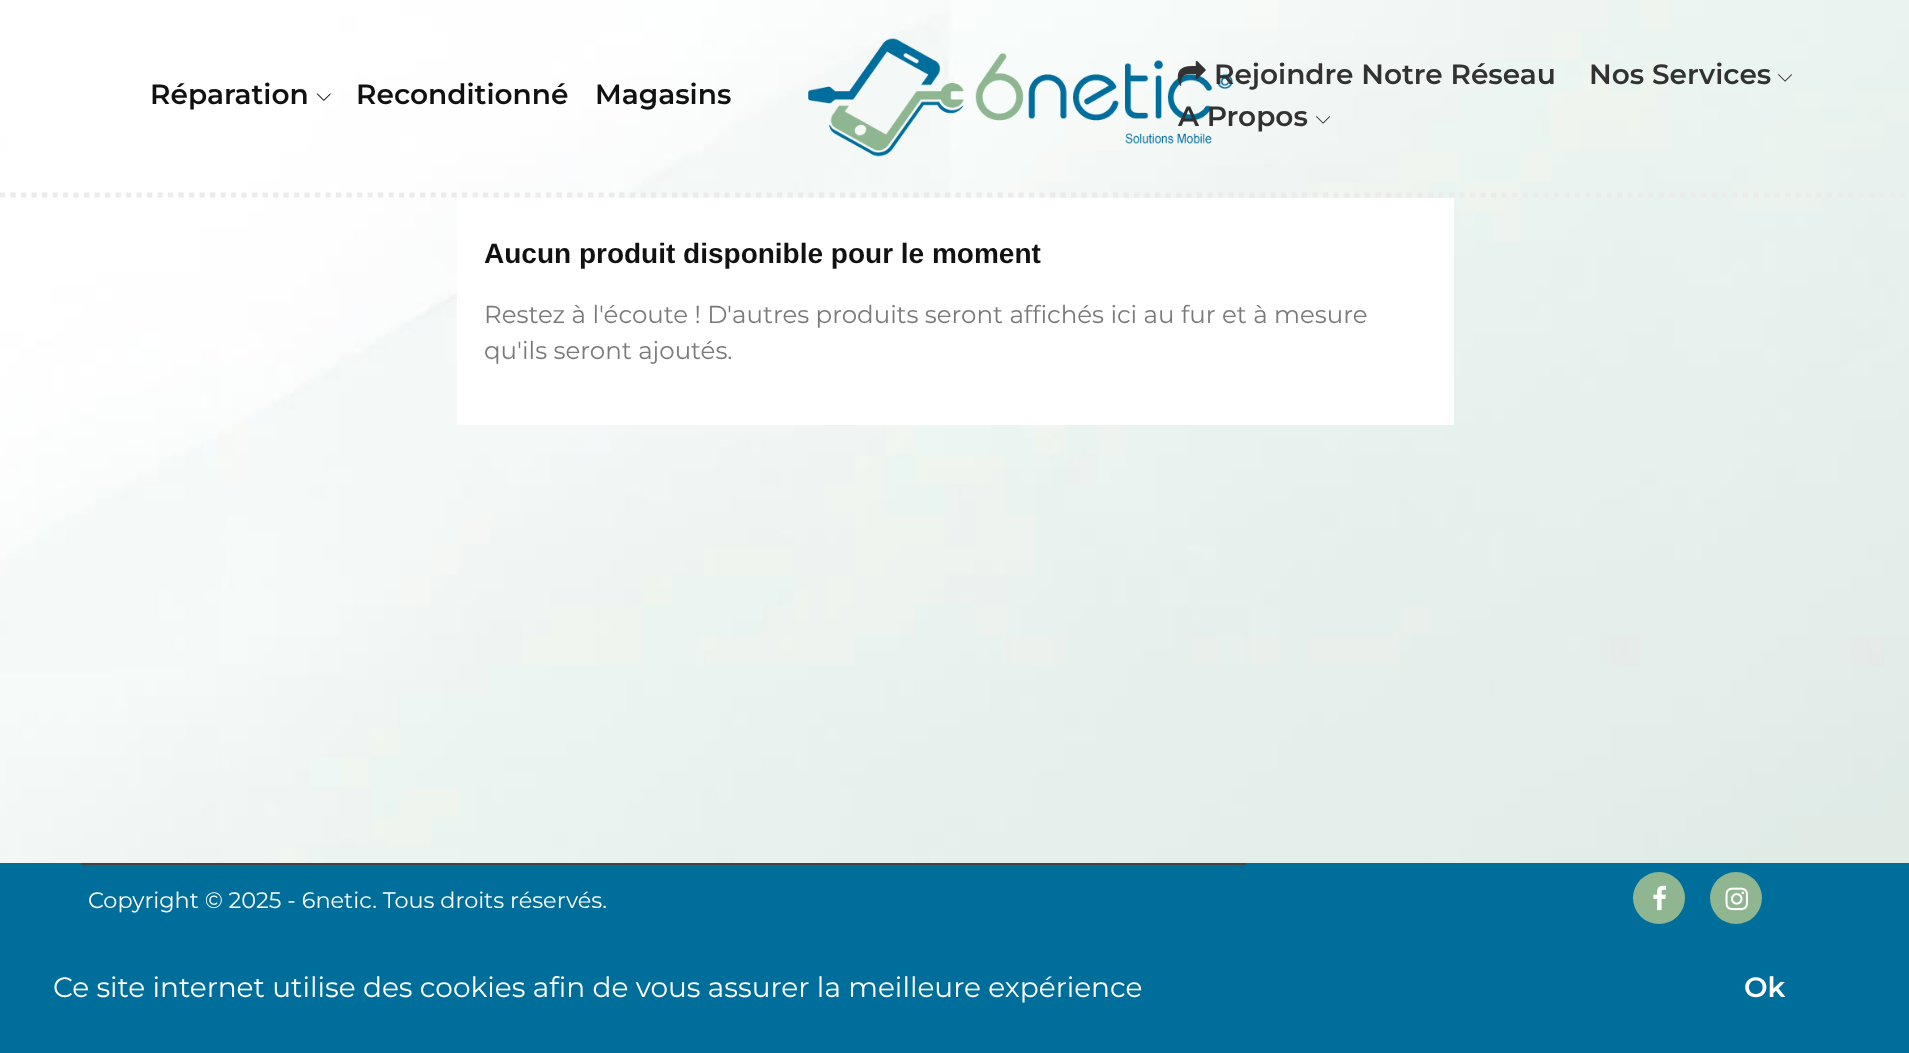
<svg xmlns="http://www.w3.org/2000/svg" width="1909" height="1053">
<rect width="100%" height="100%" fill="#fff"/>
<image x="0" y="0" width="1909" height="863" href="media/1.png"/>
<path d="M0 195h1909" fill="none" stroke="#ebebeb" stroke-width="5.2" stroke-dasharray="5.25 5.25"/>
<text x="150" y="104" style="font-family:Montserrat;font-size:28px;font-weight:600;fill:#121111">Réparation</text>
<image x="316" y="93" width="15" height="8" href="media/2.png"/>
<text x="356" y="104" style="font-family:Montserrat;font-size:28px;font-weight:600;fill:#121111">Reconditionné</text>
<text x="595" y="104" style="font-family:Montserrat;font-size:28px;font-weight:600;fill:#121111">Magasins</text>
<image x="808" y="38" width="425" height="119" href="media/3.png"/>
<image x="1177" y="61" width="29" height="25" href="media/4.png"/>
<text x="1214" y="84" style="font-family:Montserrat;font-size:28px;font-weight:600;fill:#323232">Rejoindre Notre Réseau</text>
<text x="1589" y="84" style="font-family:Montserrat;font-size:28px;font-weight:600;fill:#323232">Nos Services</text>
<image x="1778" y="74" width="14" height="8" href="media/5.png"/>
<text x="1178" y="126" style="font-family:Montserrat;font-size:28px;font-weight:600;fill:#323232">A Propos</text>
<image x="1316" y="116" width="14" height="8" href="media/6.png"/>
<rect x="457" y="198" width="997" height="227" fill="#fff"/>
<text x="484" y="263" style="font-family:Liberation Sans;font-size:28px;font-weight:bold;fill:#121111">Aucun produit disponible pour le moment</text>
<text x="484" y="323" style="font-family:Montserrat;font-size:24.5px;fill:#7a7a7a">Restez à l'écoute ! D'autres produits seront affichés ici au fur et à mesure</text>
<text x="484" y="359" style="font-family:Montserrat;font-size:24.5px;fill:#7a7a7a">qu'ils seront ajoutés.</text>
<rect y="863" width="1909" height="190" fill="#006e9b"/>
<rect x="81" y="863" width="1165" height="2" fill="#444"/>
<text x="88" y="908" style="font-family:Montserrat;font-size:22.4px;fill:#fff">Copyright © 2025 - 6netic. Tous droits réservés.</text>
<circle cx="1659" cy="898" r="26" fill="#8fb690"/>
<image x="1653" y="885" width="14" height="26" href="media/7.png"/>
<circle cx="1736" cy="898" r="26" fill="#8fb690"/>
<image x="1725" y="887" width="23" height="24" href="media/8.png"/>
<text x="53" y="997" style="font-family:Montserrat;font-size:28px;fill:#fff">Ce site internet utilise des cookies afin de vous assurer la meilleure expérience</text>
<text x="1744" y="997" style="font-family:Montserrat;font-size:28px;font-weight:600;fill:#fff">Ok</text>
</svg>
